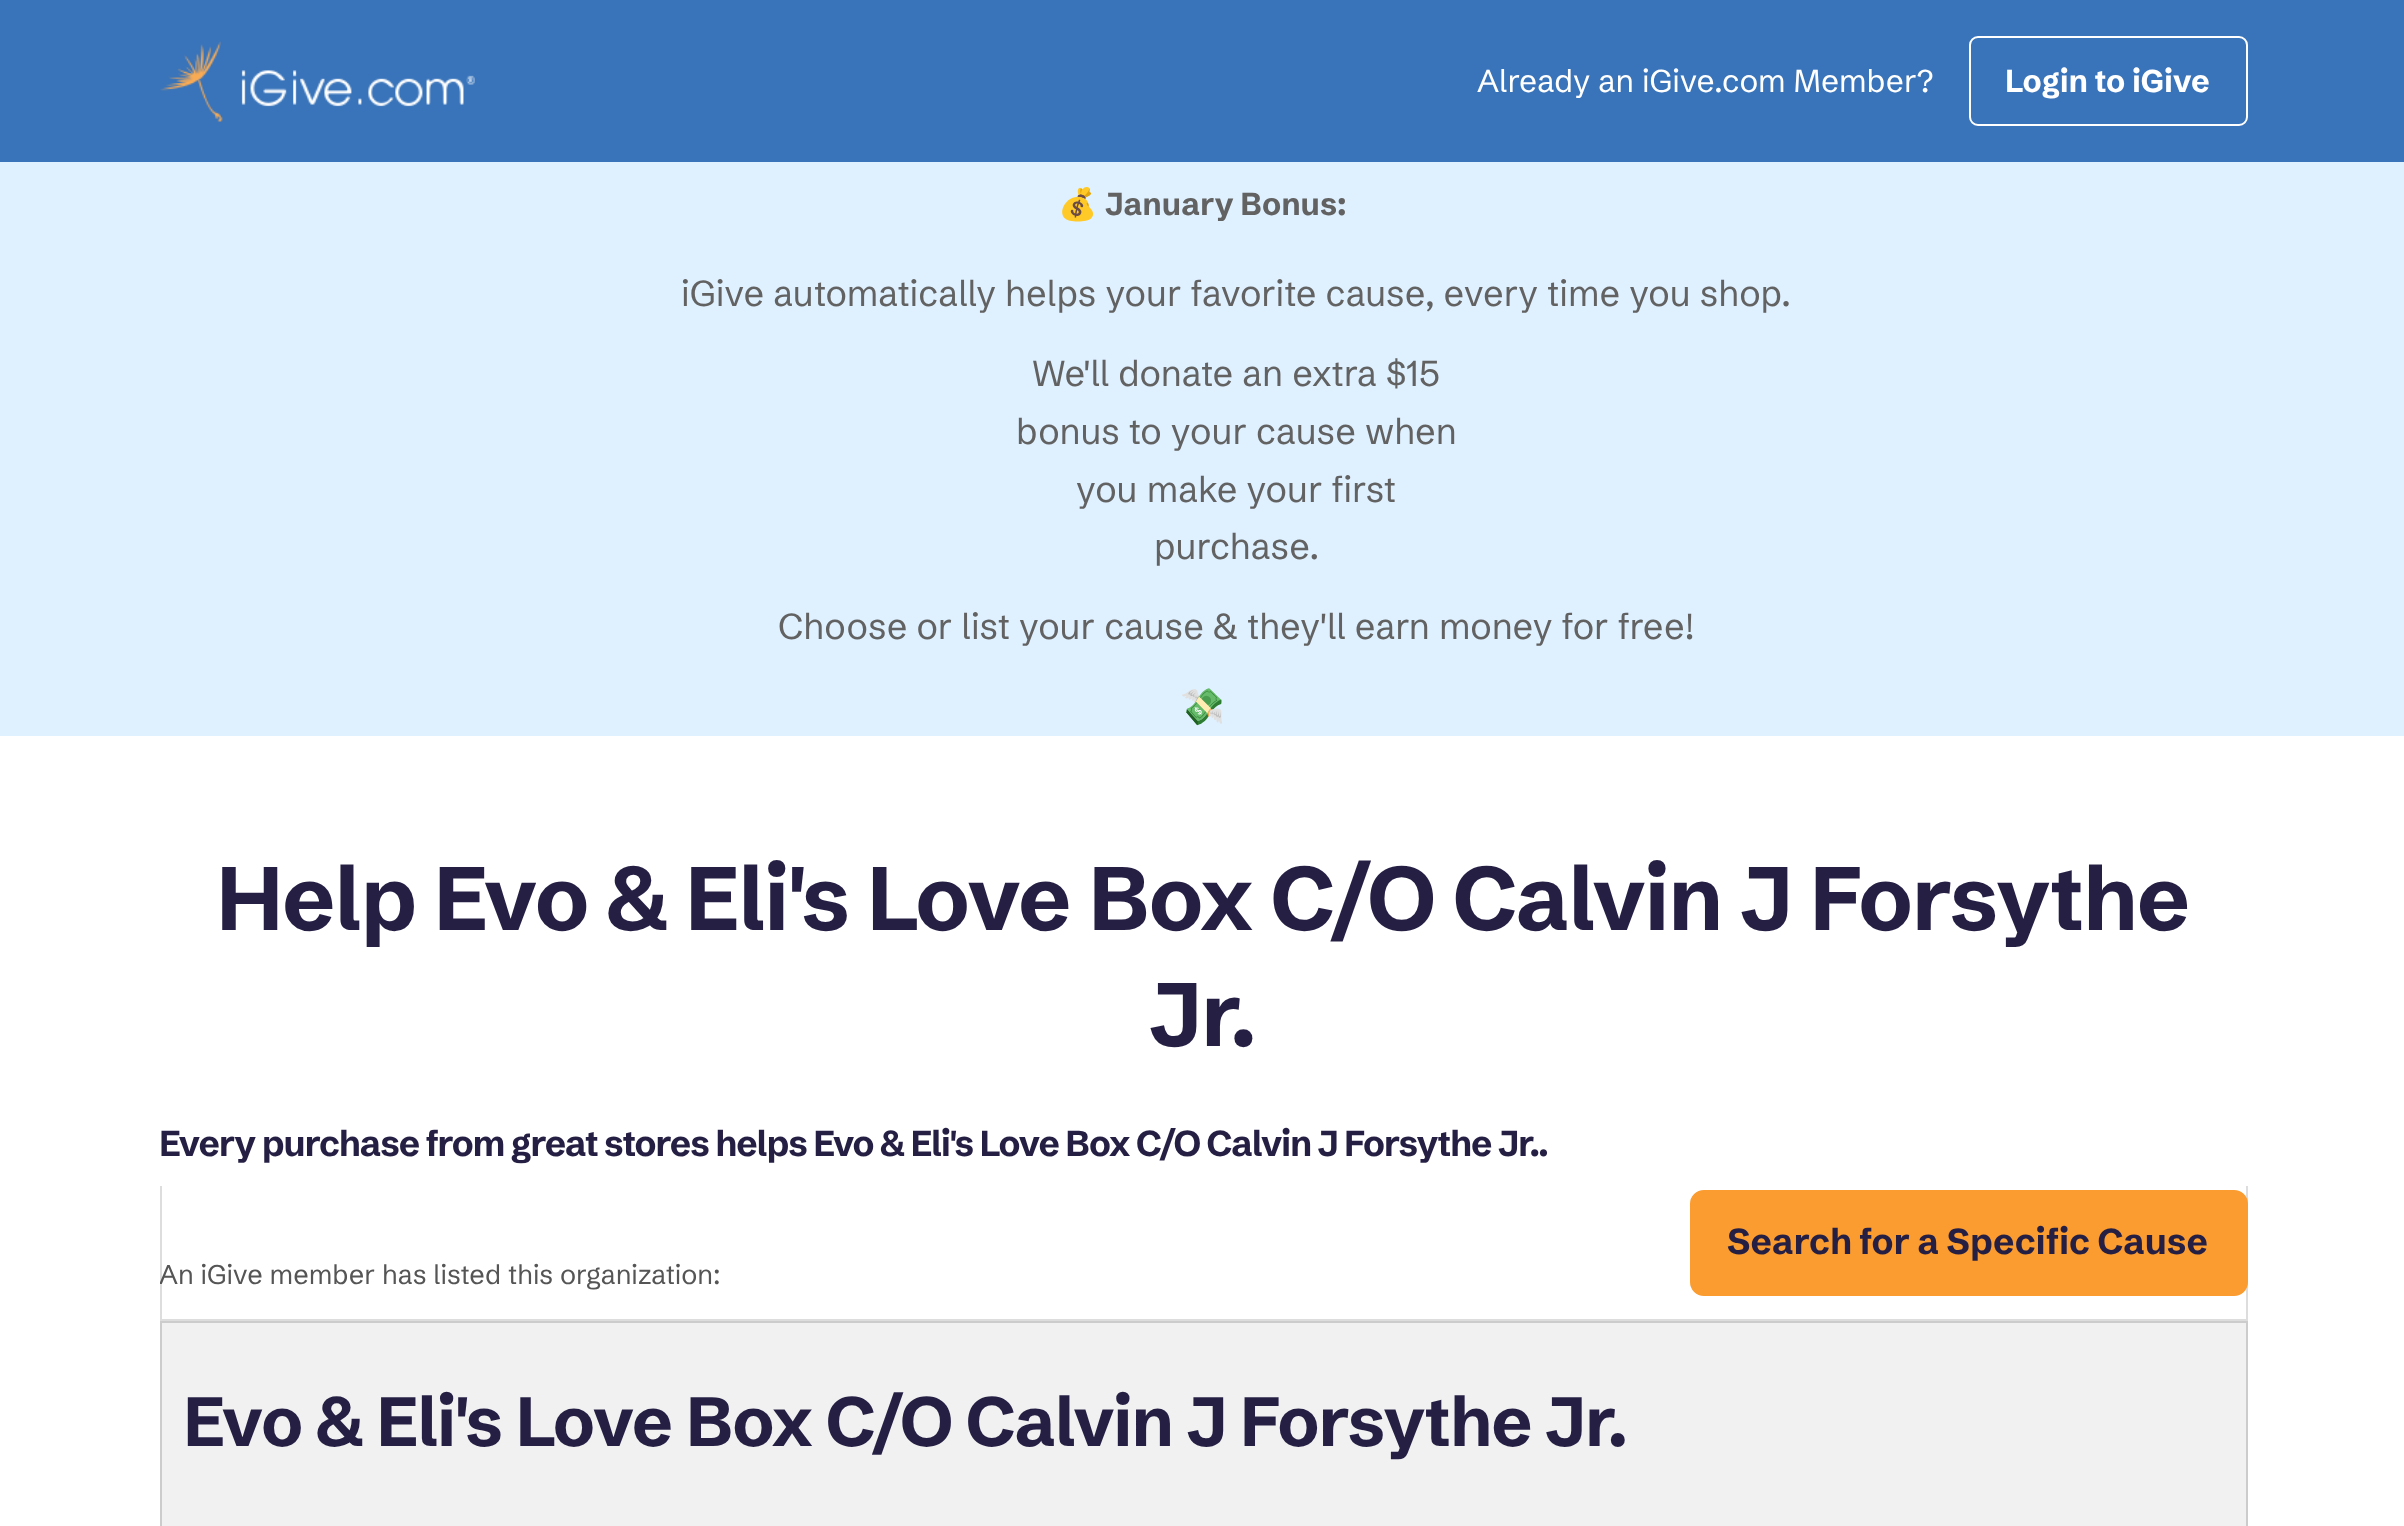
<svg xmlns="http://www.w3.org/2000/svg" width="2404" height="1526">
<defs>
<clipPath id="clip1"><rect x="160" y="1186" width="2088" height="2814"/></clipPath>
</defs>
<rect width="100%" height="100%" fill="#fff"/>
<rect width="2404" height="162" fill="#3974ba"/>
<image x="160" y="41" width="315" height="81" href="media/1.png"/>
<text x="1477" y="92" style="font-family:Schibsted Grotesk;font-size:31.5px;fill:#fff">Already an iGive.com Member?</text>
<rect x="1970" y="37" width="277" height="88" rx="8" fill="none" stroke="#fff" stroke-width="2"/>
<text x="2005" y="92" style="font-family:Schibsted Grotesk;font-size:31.5px;font-weight:bold;fill:#fff">Login to iGive</text>
<rect y="162" width="2404" height="574" fill="#dff0ff"/>
<text x="1058" y="215" style="font-family:Noto Color Emoji;font-size:31.5px;fill:#626262">💰</text>
<text x="1105" y="215" style="font-family:Schibsted Grotesk;font-size:31.5px;font-weight:bold;fill:#626262">January Bonus:</text>
<text x="681" y="306" style="font-family:Schibsted Grotesk;font-size:36px;fill:#626262">iGive automatically helps your favorite cause, every time you shop.</text>
<text x="1032" y="386" style="font-family:Schibsted Grotesk;font-size:36px;fill:#626262">We'll donate an extra $15</text>
<text x="1016" y="444" style="font-family:Schibsted Grotesk;font-size:36px;fill:#626262">bonus to your cause when</text>
<text x="1076" y="502" style="font-family:Schibsted Grotesk;font-size:36px;fill:#626262">you make your first</text>
<text x="1154" y="559" style="font-family:Schibsted Grotesk;font-size:36px;fill:#626262">purchase.</text>
<text x="778" y="639" style="font-family:Schibsted Grotesk;font-size:36px;fill:#626262">Choose or list your cause &amp; they'll earn money for free!</text>
<text x="1180" y="719" style="font-family:Noto Color Emoji;font-size:36px;fill:#626262">💸</text>
<text x="216" y="930" style="font-family:Schibsted Grotesk;font-size:89.6px;font-weight:bold;letter-spacing:-1.08px;fill:#261f44">Help Evo &amp; Eli's Love Box C/O Calvin J Forsythe</text>
<text x="1149" y="1046" style="font-family:Schibsted Grotesk;font-size:89.6px;font-weight:bold;letter-spacing:-1.08px;fill:#261f44">Jr.</text>
<text x="159" y="1156" style="font-family:Schibsted Grotesk;font-size:36px;font-weight:bold;letter-spacing:-1.08px;fill:#261f44">Every purchase from great stores helps Evo &amp; Eli's Love Box C/O Calvin J Forsythe Jr..</text>
<rect x="2246" y="1186" width="2" height="133" fill="#ddd"/>
<rect x="160" y="1186" width="2" height="133" fill="#ddd"/>
<rect x="160" y="1319" width="2088" height="2" fill="#ddd"/>
<rect x="1691" y="1191" width="556" height="104" rx="13" fill="#fa9c30" stroke="#fa9c30" stroke-width="2"/>
<text x="1727" y="1254" style="font-family:Schibsted Grotesk;font-size:36px;font-weight:bold;fill:#261f44">Search for a Specific Cause</text>
<g clip-path="url(#clip1)">
<text x="159" y="1284" style="font-family:Schibsted Grotesk;font-size:27px;fill:#555">An iGive member has listed this organization:</text>
</g>
<rect x="161" y="1322" width="2086" height="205" fill="#f1f1f1" stroke="#ccc" stroke-width="2"/>
<text x="183" y="1446" style="font-family:Schibsted Grotesk;font-size:69.35px;font-weight:bold;letter-spacing:-1.08px;fill:#261f44">Evo &amp; Eli's Love Box C/O Calvin J Forsythe Jr.</text>
</svg>
